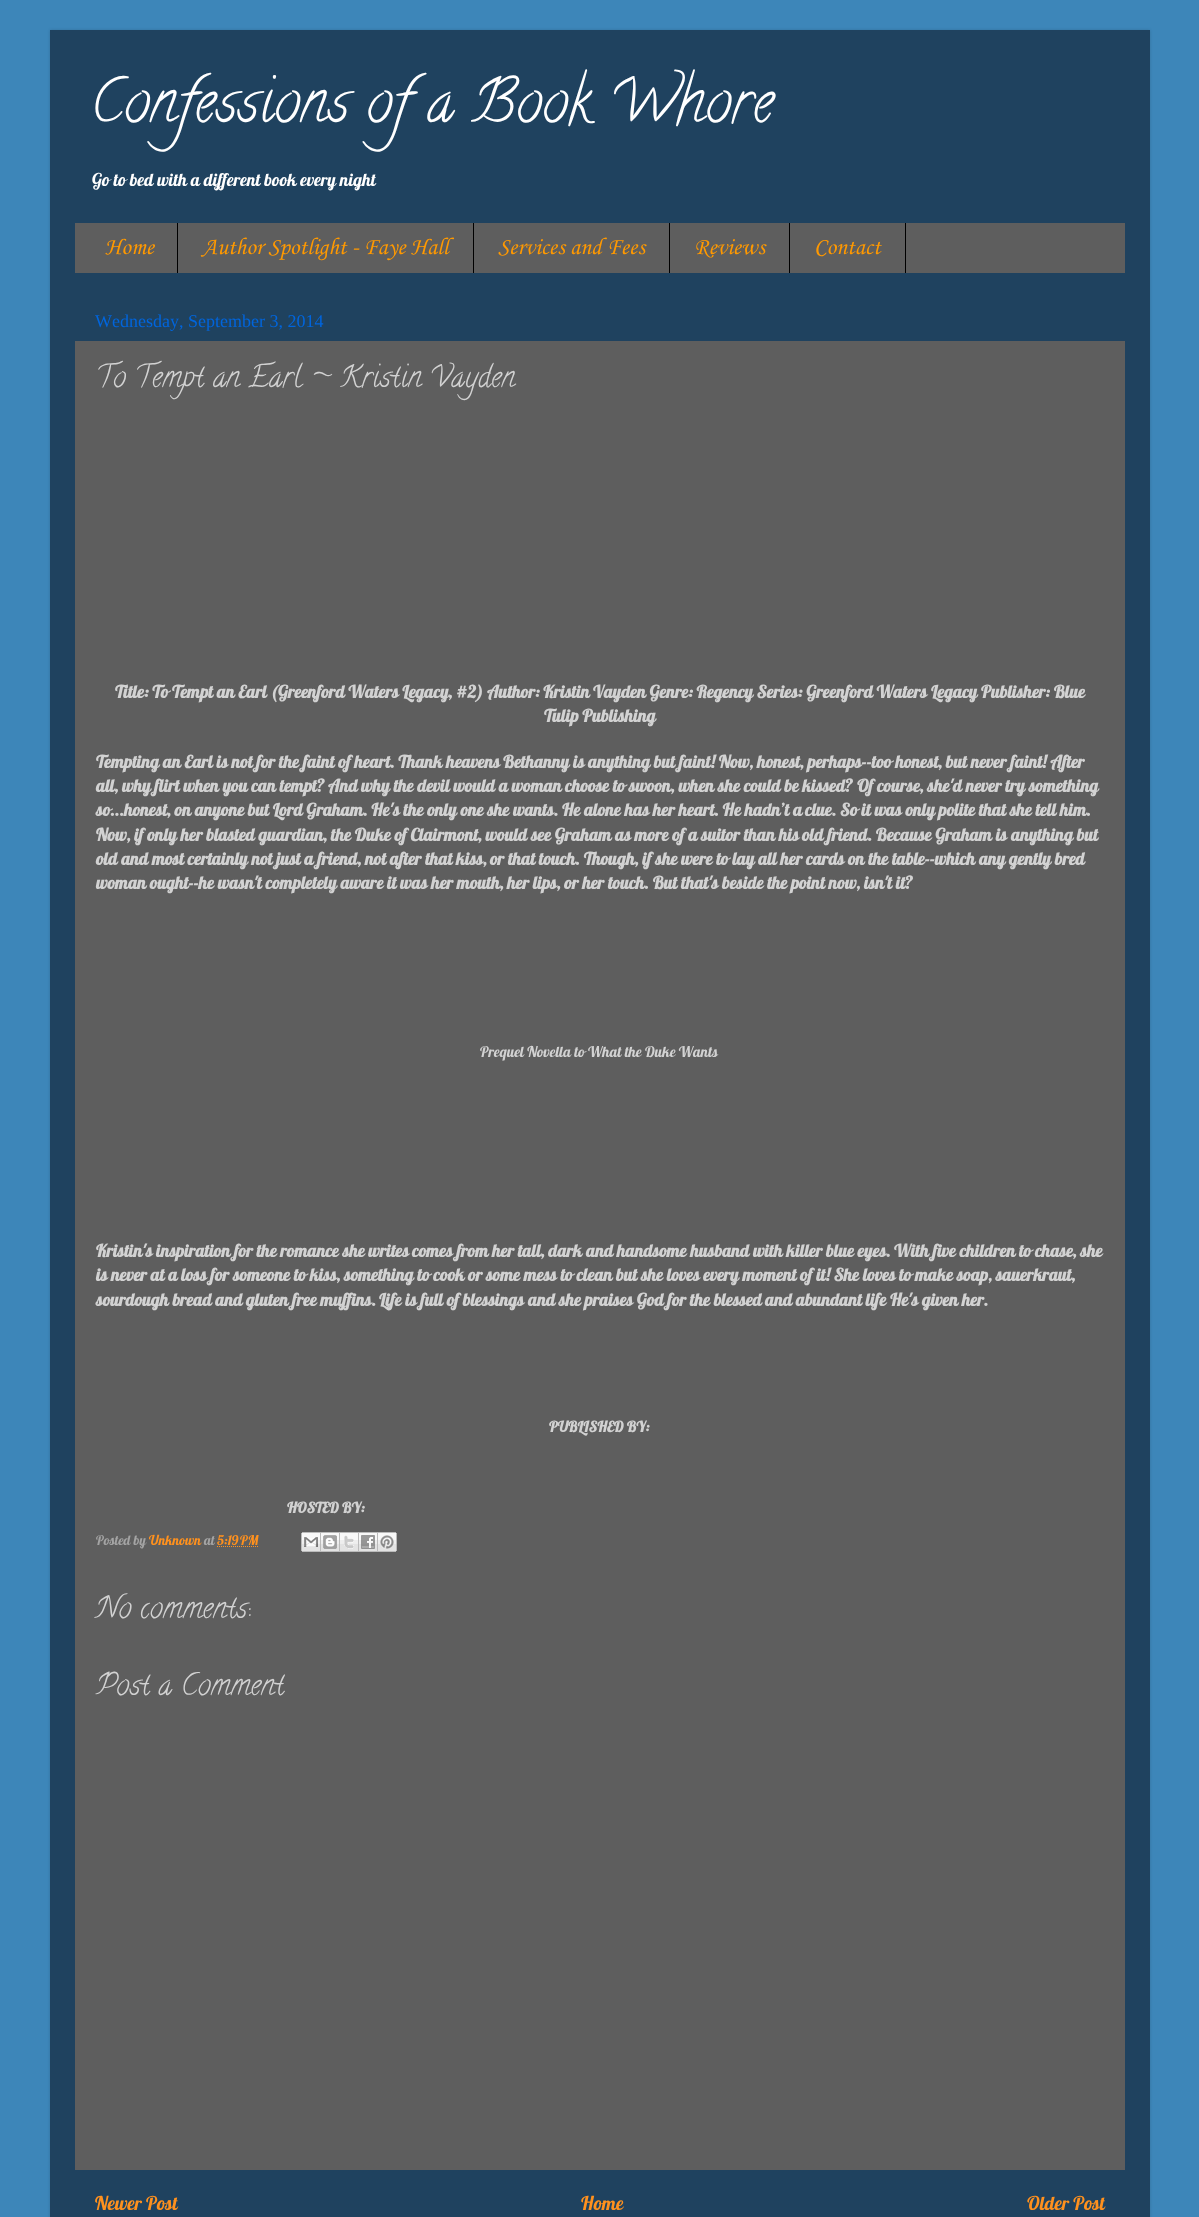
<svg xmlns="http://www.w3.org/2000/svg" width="1199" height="2217">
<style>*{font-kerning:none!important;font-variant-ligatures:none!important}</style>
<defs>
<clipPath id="clip1"><rect x="95" y="2190" width="1010" height="26"/></clipPath>
</defs>
<rect width="100%" height="100%" fill="#3d86b9"/>
<rect x="50" y="30" width="1100" height="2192" fill="#00000026" filter="blur(1.5px)"/>
<rect x="50" y="30" width="1100" height="2187" fill="#1f425f"/>
<text x="90" y="120" style="font-family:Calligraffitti;font-size:60px;fill:#fff">Confessions of a Book Whore</text>
<text x="92" y="186" style="font-family:Lobster;font-size:17.5px;fill:#fff">Go to bed with a different book every night</text>
<rect x="75" y="223" width="1050" height="50" fill="#5e5e5e"/>
<rect x="177" y="223" width="1" height="50" fill="#000"/>
<text x="105" y="254" style="font-family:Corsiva;font-size:24px;fill:#f90">Home</text>
<rect x="473" y="223" width="1" height="50" fill="#000"/>
<text x="202" y="254" style="font-family:Corsiva;font-size:24px;fill:#f90">Author Spotlight - Faye Hall</text>
<rect x="669" y="223" width="1" height="50" fill="#000"/>
<text x="498" y="254" style="font-family:Corsiva;font-size:24px;fill:#f90">Services and Fees</text>
<rect x="789" y="223" width="1" height="50" fill="#000"/>
<text x="694" y="254" style="font-family:Corsiva;font-size:24px;fill:#f90">Reviews</text>
<rect x="905" y="223" width="1" height="50" fill="#000"/>
<text x="814" y="254" style="font-family:Corsiva;font-size:24px;fill:#f90">Contact</text>
<text x="95" y="327" style="font-family:Liberation Serif;font-size:18px;fill:#0065dd">Wednesday, September 3, 2014</text>
<rect x="75" y="341" width="1050" height="1829" fill="#5e5e5e"/>
<text x="96" y="386" style="font-family:Calligraffitti;font-size:30px;fill:#d2d2d2">To Tempt an Earl ~ Kristin Vayden</text>
<text x="115" y="698" style="font-family:Lobster;font-size:17.37px;font-weight:bold;fill:#d2d2d2">Title: To Tempt an Earl (Greenford Waters Legacy, #2) Author: Kristin</text>
<text x="593" y="698" style="font-family:Lobster;font-size:17.37px;font-weight:bold;fill:#d2d2d2">Vayden Genre: Regency Series: Greenford Waters</text>
<text x="931" y="698" style="font-family:Lobster;font-size:17.37px;font-weight:bold;fill:#d2d2d2">Legacy Publisher: Blue</text>
<text x="544" y="722" style="font-family:Lobster;font-size:17.37px;font-weight:bold;fill:#d2d2d2">Tulip Publishing</text>
<text x="96" y="768" style="font-family:Lobster;font-size:17.37px;font-weight:bold;fill:#d2d2d2">Tempting an Earl is not for the faint of heart. Thank heavens</text>
<text x="503" y="768" style="font-family:Lobster;font-size:17.37px;font-weight:bold;fill:#d2d2d2">Bethanny is anything but faint! Now, honest, perhaps--too honest, but never faint! After</text>
<text x="96" y="792" style="font-family:Lobster;font-size:17.37px;font-weight:bold;fill:#d2d2d2">all, why flirt when you can tempt? And</text>
<text x="361" y="792" style="font-family:Lobster;font-size:17.37px;font-weight:bold;fill:#d2d2d2">why the devil would a woman</text>
<text x="565" y="792" style="font-family:Lobster;font-size:17.37px;font-weight:bold;fill:#d2d2d2">choose to swoon, when she could be kissed?</text>
<text x="857" y="792" style="font-family:Lobster;font-size:17.37px;font-weight:bold;fill:#d2d2d2">Of course, she'd never try something</text>
<text x="96" y="816" style="font-family:Lobster;font-size:17.37px;font-weight:bold;fill:#d2d2d2">so...honest, on anyone but Lord Graham. He's the only one she</text>
<text x="513" y="816" style="font-family:Lobster;font-size:17.37px;font-weight:bold;fill:#d2d2d2">wants. He alone has her heart. He hadn’t a</text>
<text x="805" y="816" style="font-family:Lobster;font-size:17.37px;font-weight:bold;fill:#d2d2d2">clue. So it was only polite that she tell him.</text>
<text x="96" y="841" style="font-family:Lobster;font-size:17.37px;font-weight:bold;fill:#d2d2d2">Now, if only her blasted guardian, the Duke of Clairmont, would see Graham</text>
<text x="615" y="841" style="font-family:Lobster;font-size:17.37px;font-weight:bold;fill:#d2d2d2">as more of a suitor than his</text>
<text x="802" y="841" style="font-family:Lobster;font-size:17.37px;font-weight:bold;fill:#d2d2d2">old friend. Because Graham is</text>
<text x="1011" y="841" style="font-family:Lobster;font-size:17.37px;font-weight:bold;fill:#d2d2d2">anything but</text>
<text x="96" y="865" style="font-family:Lobster;font-size:17.37px;font-weight:bold;fill:#d2d2d2">old and most certainly not just a friend, not after that kiss,</text>
<text x="490" y="865" style="font-family:Lobster;font-size:17.37px;font-weight:bold;fill:#d2d2d2">or that touch. Though, if she were to lay all her cards</text>
<text x="848" y="865" style="font-family:Lobster;font-size:17.37px;font-weight:bold;fill:#d2d2d2">on the table--which any gently bred</text>
<text x="96" y="889" style="font-family:Lobster;font-size:17.37px;font-weight:bold;fill:#d2d2d2">woman ought--he wasn't completely aware it was her mouth,</text>
<text x="507" y="889" style="font-family:Lobster;font-size:17.37px;font-weight:bold;fill:#d2d2d2">her lips, or her touch. But that's beside the point now, isn't it?</text>
<text x="480" y="1057" style="font-family:Lobster;font-size:14.8px;fill:#d2d2d2">Prequel Novella to What the Duke Wants</text>
<text x="96" y="1257" style="font-family:Lobster;font-size:17.37px;font-weight:bold;fill:#d2d2d2">Kristin's inspiration for the romance she writes</text>
<text x="412" y="1257" style="font-family:Lobster;font-size:17.37px;font-weight:bold;fill:#d2d2d2">comes from her tall, dark</text>
<text x="586" y="1257" style="font-family:Lobster;font-size:17.37px;font-weight:bold;fill:#d2d2d2">and handsome husband with killer blue eyes.</text>
<text x="894" y="1257" style="font-family:Lobster;font-size:17.37px;font-weight:bold;fill:#d2d2d2">With five children to chase, she</text>
<text x="96" y="1281" style="font-family:Lobster;font-size:17.37px;font-weight:bold;fill:#d2d2d2">is never at a loss for someone to kiss,</text>
<text x="344" y="1281" style="font-family:Lobster;font-size:17.37px;font-weight:bold;fill:#d2d2d2">something to cook or some mess to clean but she loves every moment of it! She loves</text>
<text x="899" y="1281" style="font-family:Lobster;font-size:17.37px;font-weight:bold;fill:#d2d2d2">to make soap, sauerkraut,</text>
<text x="96" y="1306" style="font-family:Lobster;font-size:17.37px;font-weight:bold;fill:#d2d2d2">sourdough bread and gluten free muffins.</text>
<text x="379" y="1306" style="font-family:Lobster;font-size:17.37px;font-weight:bold;fill:#d2d2d2">Life is full of blessings</text>
<text x="528" y="1306" style="font-family:Lobster;font-size:17.37px;font-weight:bold;fill:#d2d2d2">and she praises God for the blessed</text>
<text x="765" y="1306" style="font-family:Lobster;font-size:17.37px;font-weight:bold;fill:#d2d2d2">and abundant life He's given her.</text>
<text x="549" y="1432" style="font-family:Lobster;font-size:14.8px;font-weight:bold;fill:#d2d2d2">PUBLISHED BY:</text>
<text x="287" y="1513" style="font-family:Lobster;font-size:14.8px;font-weight:bold;fill:#d2d2d2">HOSTED BY:</text>
<text x="96" y="1545" style="font-family:Lobster;font-size:13.5px;fill:#a4a4a4">Posted by</text>
<text x="149" y="1545" style="font-family:Lobster;font-size:13.5px;fill:#ff911e">Unknown</text>
<text x="204" y="1545" style="font-family:Lobster;font-size:13.5px;fill:#a4a4a4">at</text>
<path d="M217 1546.5h41.5" fill="none" stroke="#ff911e" stroke-dasharray="1 1"/>
<text x="217" y="1545" style="font-family:Lobster;font-size:13.5px;fill:#ff911e">5:19 PM</text>
<image x="301" y="1532" width="20" height="20" href="media/1.png"/>
<image x="321" y="1532" width="19" height="20" href="media/2.png"/>
<image x="340" y="1532" width="19" height="20" href="media/3.png"/>
<image x="359" y="1532" width="19" height="20" href="media/4.png"/>
<image x="378" y="1532" width="19" height="20" href="media/5.png"/>
<text x="96" y="1617" style="font-family:Calligraffitti;font-size:30px;fill:#d2d2d2">No comments:</text>
<text x="96" y="1694" style="font-family:Calligraffitti;font-size:30px;fill:#d2d2d2">Post a Comment</text>
<g clip-path="url(#clip1)">
<text x="95" y="2210" style="font-family:Lobster;font-size:19px;fill:#ff911e">Newer Post</text>
</g>
<text x="581" y="2210" style="font-family:Lobster;font-size:19px;fill:#ff911e">Home</text>
<text x="1027" y="2210" style="font-family:Lobster;font-size:19px;fill:#ff911e">Older Post</text>
</svg>
